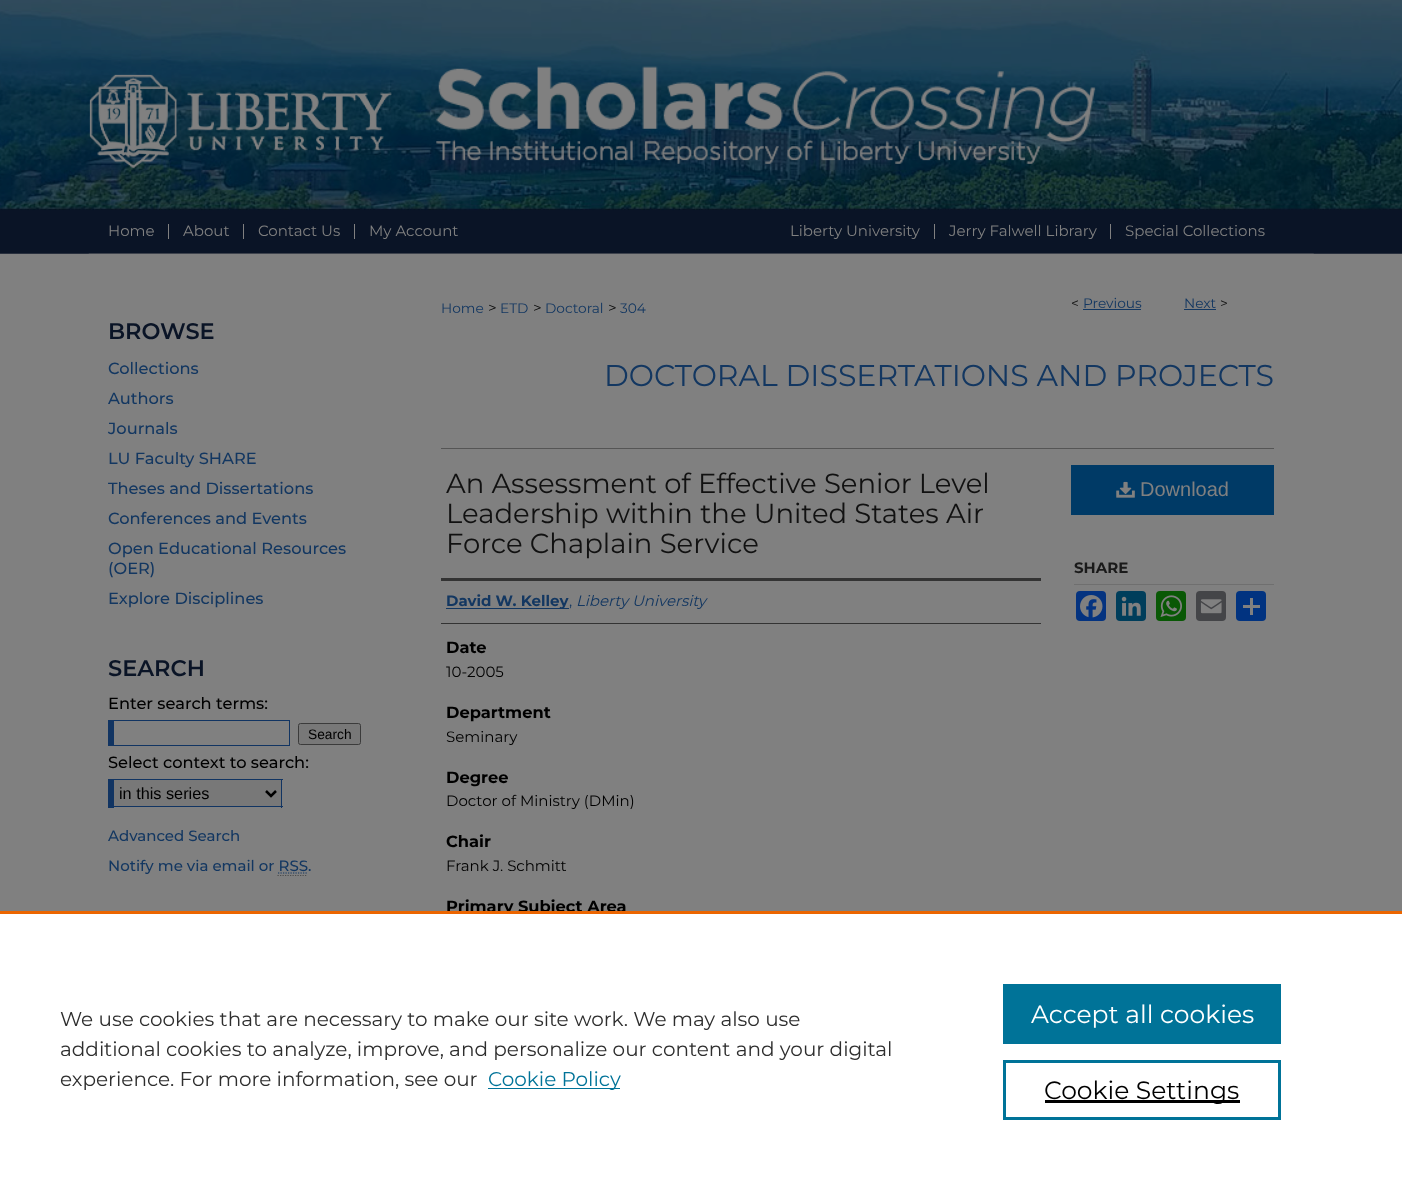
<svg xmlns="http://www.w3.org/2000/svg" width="1402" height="1186">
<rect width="100%" height="100%" fill="#808080"/>
<image x="0" y="0" width="1402" height="254" href="media/1.png"/>
<image x="89" y="66" width="1007" height="102" href="media/2.png"/>
<image x="89" y="74" width="303" height="94" href="media/3.png"/>
<rect x="168" y="224" width="1" height="15" fill="#808080"/>
<text x="108" y="236" style="font-family:Montserrat;font-size:15px;fill:#808080">Home</text>
<rect x="243" y="224" width="1" height="15" fill="#808080"/>
<text x="183" y="236" style="font-family:Montserrat;font-size:15px;fill:#808080">About</text>
<rect x="354" y="224" width="1" height="15" fill="#808080"/>
<text x="258" y="236" style="font-family:Montserrat;font-size:15px;fill:#808080">Contact Us</text>
<text x="369" y="236" style="font-family:Montserrat;font-size:15px;fill:#808080">My Account</text>
<rect x="934" y="224" width="1" height="15" fill="#808080"/>
<text x="790" y="236" style="font-family:Montserrat;font-size:15px;fill:#808080">Liberty University</text>
<rect x="1110" y="224" width="1" height="15" fill="#808080"/>
<text x="949" y="236" style="font-family:Montserrat;font-size:15px;fill:#808080">Jerry Falwell Library</text>
<text x="1125" y="236" style="font-family:Montserrat;font-size:15px;fill:#808080">Special Collections</text>
<image x="88" y="253" width="1226" height="1" href="media/4.png"/>
<text x="108" y="339" style="font-family:Montserrat;font-size:22.5px;font-weight:600;fill:#0a1426">BROWSE</text>
<text x="108" y="374" style="font-family:Montserrat;font-size:16.25px;font-weight:500;fill:#133761">Collections</text>
<text x="108" y="404" style="font-family:Montserrat;font-size:16.25px;font-weight:500;fill:#133761">Authors</text>
<text x="108" y="434" style="font-family:Montserrat;font-size:16.25px;font-weight:500;fill:#133761">Journals</text>
<text x="108" y="464" style="font-family:Montserrat;font-size:16.25px;font-weight:500;fill:#133761">LU Faculty SHARE</text>
<text x="108" y="494" style="font-family:Montserrat;font-size:16.25px;font-weight:500;fill:#133761">Theses and Dissertations</text>
<text x="108" y="524" style="font-family:Montserrat;font-size:16.25px;font-weight:500;fill:#133761">Conferences and Events</text>
<text x="108" y="554" style="font-family:Montserrat;font-size:16.25px;font-weight:500;fill:#133761">Open Educational Resources</text>
<text x="108" y="574" style="font-family:Montserrat;font-size:16.25px;font-weight:500;fill:#133761">(OER)</text>
<text x="108" y="604" style="font-family:Montserrat;font-size:16.25px;font-weight:500;fill:#133761">Explore Disciplines</text>
<text x="108" y="676" style="font-family:Montserrat;font-size:22.5px;font-weight:600;fill:#0a1426">SEARCH</text>
<text x="108" y="709" style="font-family:Montserrat;font-size:16.25px;font-weight:500;fill:#000">Enter search terms:</text>
<rect x="108" y="720" width="182" height="1" fill="#113462"/>
<rect x="289" y="720" width="1" height="26" fill="#113462"/>
<rect x="108" y="745" width="182" height="1" fill="#113462"/>
<rect x="108" y="720" width="6" height="26" fill="#113462"/>
<rect x="298.5" y="723.5" width="62" height="21" rx="2" fill="#787878" stroke="#3b3b3b"/>
<text x="308" y="739" style="font-family:Liberation Sans;font-size:13.75px;fill:#000">Search</text>
<text x="108" y="768" style="font-family:Montserrat;font-size:16.25px;font-weight:500;fill:#000">Select context to search:</text>
<rect x="114" y="780" width="167" height="26" fill="#787878"/>
<rect x="108" y="779" width="175" height="1" fill="#113462"/>
<rect x="281" y="779" width="1" height="29" fill="#113462"/>
<rect x="108" y="806" width="175" height="1" fill="#113462"/>
<rect x="108" y="779" width="6" height="29" fill="#113462"/>
<path d="M266 791l5 5l5-5" fill="none" stroke="#000" stroke-width="2.5"/>
<text x="119" y="799" style="font-family:Liberation Sans;font-size:16.25px;fill:#000">in this series</text>
<text x="108" y="841" style="font-family:Montserrat;font-size:15px;font-weight:500;fill:#133761">Advanced Search</text>
<text x="108" y="871" style="font-family:Montserrat;font-size:15px;font-weight:500;fill:#133761">Notify me via email or RSS</text>
<text x="308" y="871" style="font-family:Montserrat;font-size:15px;font-weight:500;fill:#133761">.</text>
<path d="M278 873h30" fill="none" stroke="#133761" stroke-width="1.2" stroke-dasharray="1.25 1.25"/>
<path d="M277.5 875.5h30" fill="none" stroke="#4d4d4d" stroke-width="1.2" stroke-dasharray="1.25 1.25"/>
<text x="441" y="313" style="font-family:Montserrat;font-size:13.75px;fill:#133761">Home</text>
<text x="488" y="313" style="font-family:Montserrat;font-size:15px;fill:#000">&gt;</text>
<text x="500" y="313" style="font-family:Montserrat;font-size:13.75px;fill:#133761">ETD</text>
<text x="533" y="313" style="font-family:Montserrat;font-size:15px;fill:#000">&gt;</text>
<text x="545" y="313" style="font-family:Montserrat;font-size:13.75px;fill:#133761">Doctoral</text>
<text x="608" y="313" style="font-family:Montserrat;font-size:15px;fill:#000">&gt;</text>
<text x="620" y="313" style="font-family:Montserrat;font-size:13.75px;fill:#133761">304</text>
<text x="1071" y="308" style="font-family:Montserrat;font-size:13.75px;fill:#111">&lt;</text>
<text x="1083" y="308" style="font-family:Montserrat;font-size:13.75px;fill:#133761">Previous</text>
<rect x="1083" y="309" width="58" height="1" fill="#133761"/>
<text x="1184" y="308" style="font-family:Montserrat;font-size:13.75px;fill:#133761">Next</text>
<rect x="1184" y="309" width="32" height="1" fill="#133761"/>
<text x="1220" y="308" style="font-family:Montserrat;font-size:13.75px;fill:#111">&gt;</text>
<text x="604" y="386" style="font-family:Montserrat;font-size:30px;fill:#133761">DOCTORAL DISSERTATIONS AND PROJECTS</text>
<rect x="441" y="448" width="833" height="1" fill="#555"/>
<text x="446" y="493" style="font-family:Montserrat;font-size:27.5px;fill:#111">An Assessment of Effective Senior Level</text>
<text x="446" y="523" style="font-family:Montserrat;font-size:27.5px;fill:#111">Leadership within the United States Air</text>
<text x="446" y="553" style="font-family:Montserrat;font-size:27.5px;fill:#111">Force Chaplain Service</text>
<rect x="441" y="578" width="600" height="3" fill="#333"/>
<rect x="441" y="623" width="600" height="1" fill="#333"/>
<rect x="446" y="608" width="123" height="1" fill="#133761"/>
<text x="446" y="606" style="font-family:Montserrat;font-size:15px;font-weight:bold;fill:#133761">David W. Kelley</text>
<text x="569" y="606" style="font-family:Montserrat;font-size:15px;fill:#133761">,</text>
<text x="576" y="606" style="font-family:Montserrat;font-size:15px;font-style:italic;fill:#133761">Liberty University</text>
<text x="446" y="653" style="font-family:Montserrat;font-size:16.25px;font-weight:bold;fill:#000">Date</text>
<text x="446" y="677" style="font-family:Montserrat;font-size:15px;fill:#000">10-2005</text>
<text x="446" y="718" style="font-family:Montserrat;font-size:16.25px;font-weight:bold;fill:#000">Department</text>
<text x="446" y="742" style="font-family:Montserrat;font-size:15px;fill:#000">Seminary</text>
<text x="446" y="783" style="font-family:Montserrat;font-size:16.25px;font-weight:bold;fill:#000">Degree</text>
<text x="446" y="806" style="font-family:Montserrat;font-size:15px;fill:#000">Doctor of Ministry (DMin)</text>
<text x="446" y="847" style="font-family:Montserrat;font-size:16.25px;font-weight:bold;fill:#000">Chair</text>
<text x="446" y="871" style="font-family:Montserrat;font-size:15px;fill:#000">Frank J. Schmitt</text>
<text x="446" y="912" style="font-family:Montserrat;font-size:16.25px;font-weight:bold;fill:#000">Primary Subject Area</text>
<rect x="1071" y="465" width="203" height="50" fill="#003a66"/>
<image x="1116" y="481" width="19" height="17" href="media/5.png"/>
<text x="1140" y="496" style="font-family:Liberation Sans;font-size:20px;fill:#808080">Download</text>
<rect x="1074" y="584" width="200" height="1" fill="#6f6f6f"/>
<text x="1074" y="573" style="font-family:Montserrat;font-size:15px;font-weight:bold;fill:#1a1a1a">SHARE</text>
<rect x="1076" y="591" width="30" height="30" rx="4" fill="#043380"/>
<image x="1080" y="595" width="23" height="23" href="media/6.png"/>
<rect x="1116" y="591" width="30" height="30" rx="4" fill="#003e5b"/>
<image x="1121" y="596" width="20" height="20" href="media/7.png"/>
<rect x="1156" y="591" width="30" height="30" rx="4" fill="#095805"/>
<image x="1160" y="595" width="22" height="22" href="media/8.png"/>
<rect x="1196" y="591" width="30" height="30" rx="4" fill="#444548"/>
<image x="1200" y="599" width="22" height="15" href="media/9.png"/>
<rect x="1236" y="591" width="30" height="30" rx="4" fill="#013380"/>
<rect x="1250" y="598" width="3" height="17" fill="#808080"/>
<rect x="1243" y="605" width="17" height="3" fill="#808080"/>
<rect y="914" width="1402" height="272" fill="#fff"/>
<rect y="911" width="1402" height="3" fill="#eb6500"/>
<text x="60" y="1026" style="font-family:Montserrat;font-size:20px;fill:#2e2e2e">We use cookies that are necessary to make our site work. We may also use</text>
<text x="60" y="1056" style="font-family:Montserrat;font-size:20px;fill:#2e2e2e">additional cookies to analyze, improve, and personalize our content and your digital</text>
<text x="60" y="1086" style="font-family:Montserrat;font-size:20px;fill:#2e2e2e">experience. For more information, see our</text>
<rect x="488" y="1088" width="132" height="1" fill="#007398"/>
<text x="488" y="1086" style="font-family:Montserrat;font-size:20px;fill:#007398">Cookie Policy</text>
<rect x="1003" y="984" width="278" height="60" fill="#007398"/>
<text x="1031" y="1023" style="font-family:Montserrat;font-size:25px;fill:#fff">Accept all cookies</text>
<rect x="1004.5" y="1061.5" width="275" height="57" fill="none" stroke="#007398" stroke-width="3"/>
<rect x="1045" y="1100" width="195" height="3" fill="#000"/>
<text x="1044" y="1099" style="font-family:Montserrat;font-size:25px;fill:#000">Cookie Settings</text>
</svg>
